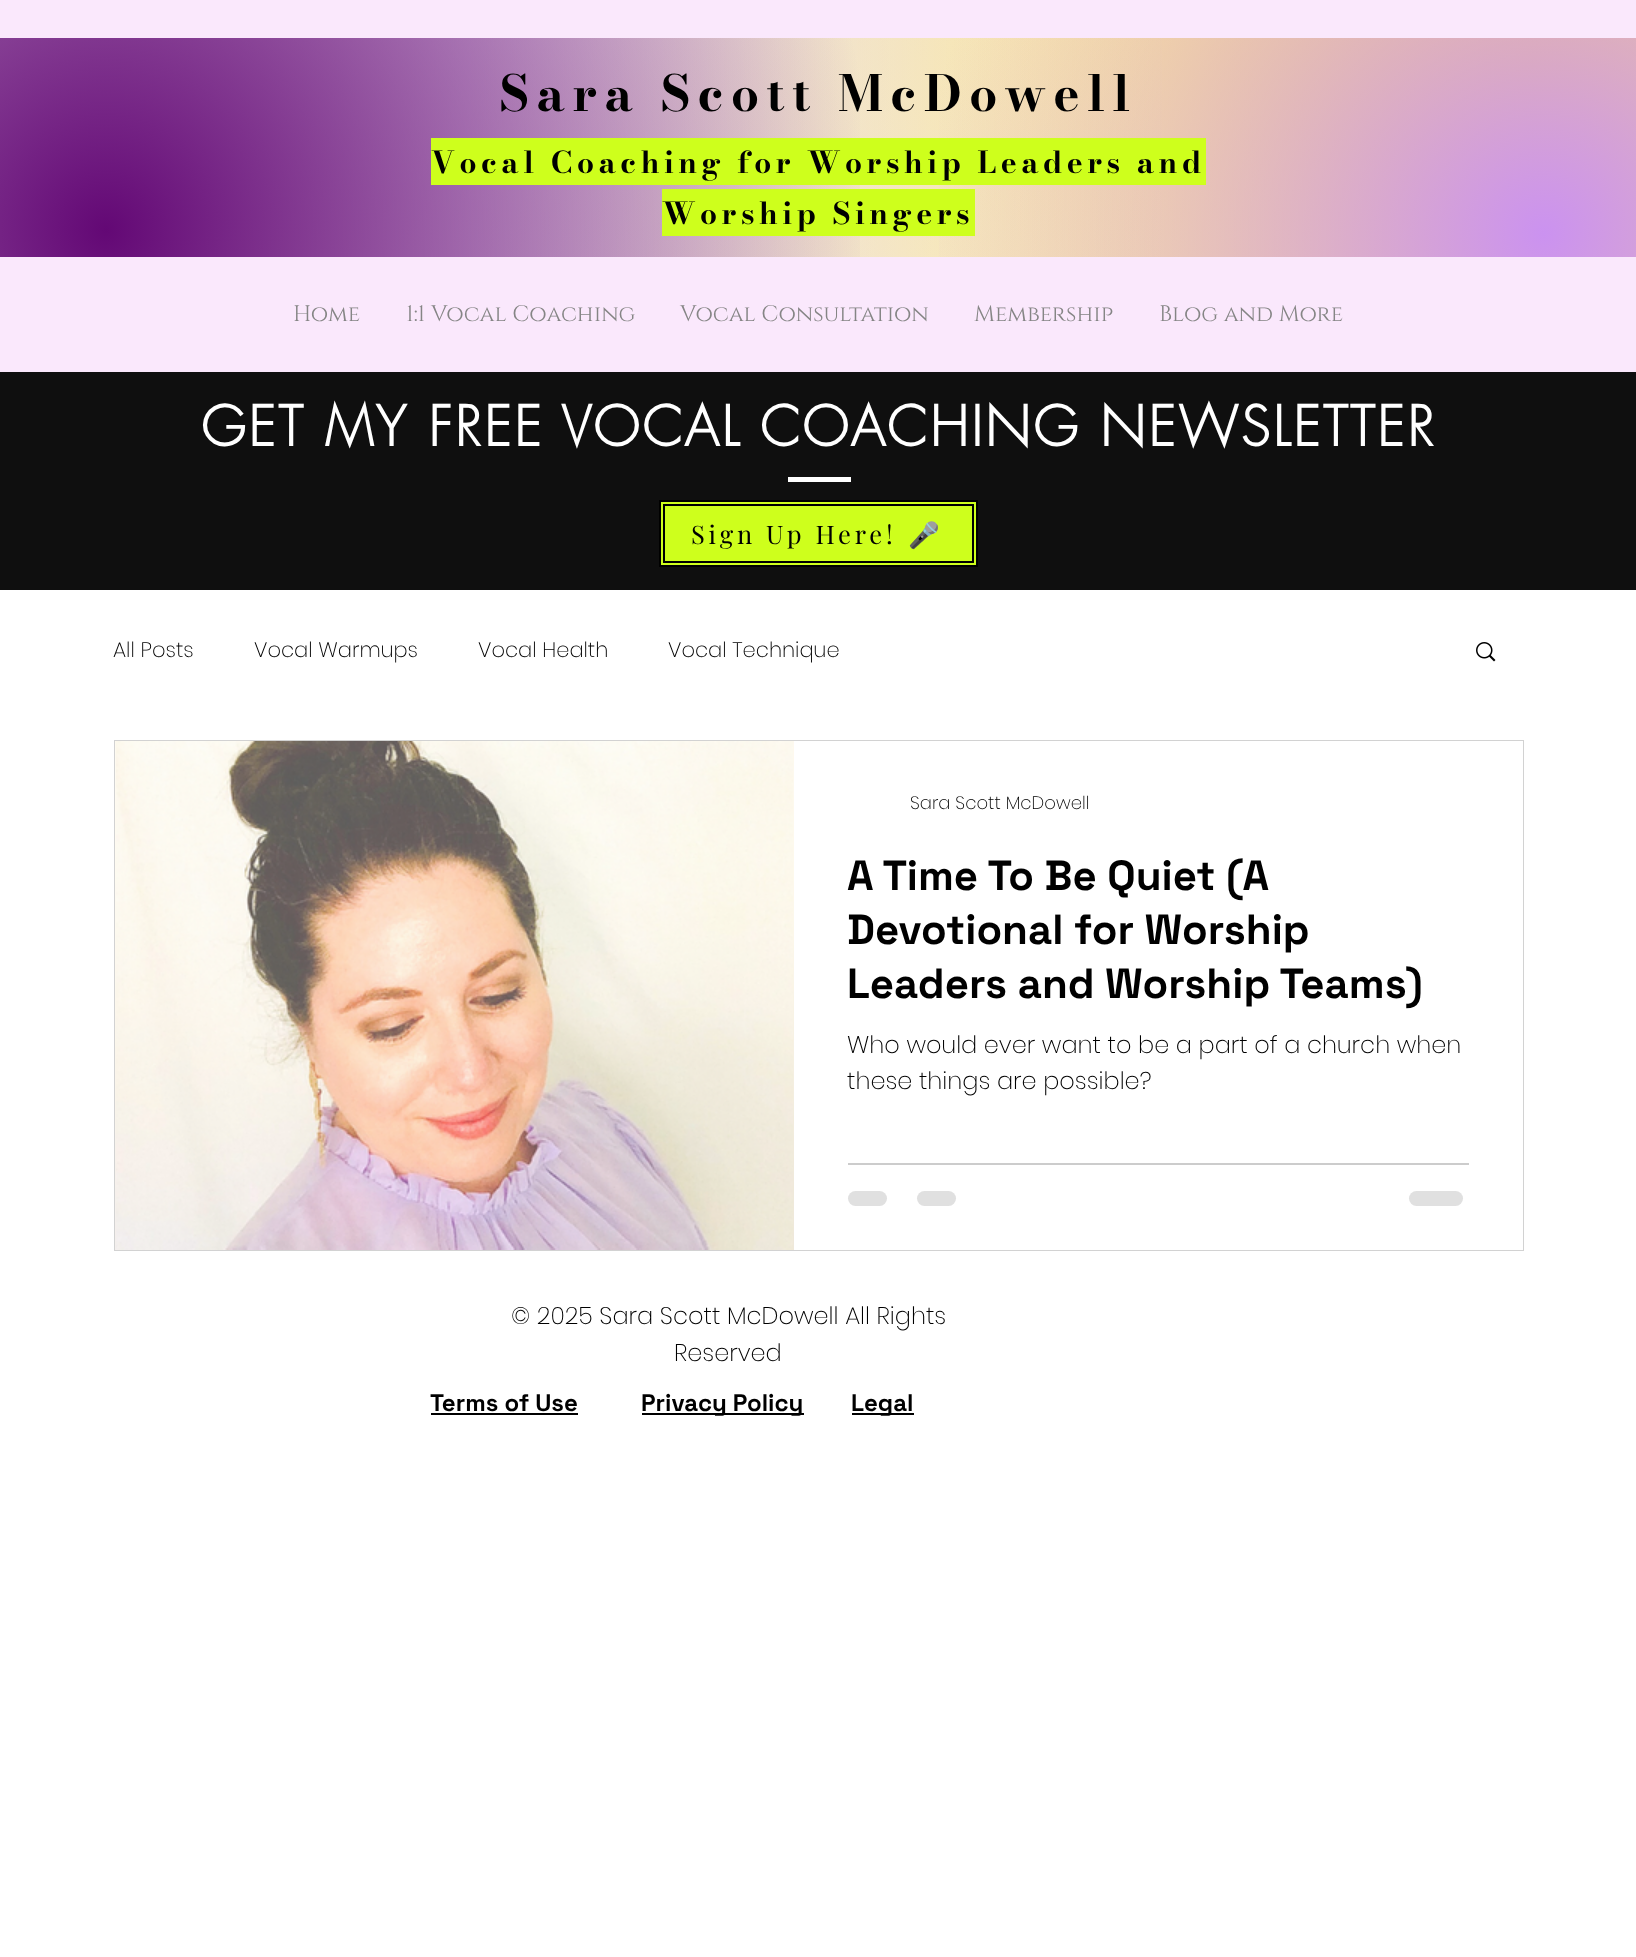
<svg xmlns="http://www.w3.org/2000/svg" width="1636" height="1957">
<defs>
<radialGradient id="g1" gradientUnits="userSpaceOnUse" cx="800" cy="146" r="844"><stop offset="0" stop-color="#fff"/><stop offset="1" stop-color="#f9e8fd"/></radialGradient>
<radialGradient id="g2" gradientUnits="userSpaceOnUse" cx="1533" cy="63" r="1545"><stop offset="0" stop-color="#ffe453"/><stop offset="0.7" stop-color="#ffe453" stop-opacity="0"/></radialGradient>
<radialGradient id="g3" gradientUnits="userSpaceOnUse" cx="101" cy="65" r="1547"><stop offset="0" stop-color="#d8c1dd"/><stop offset="0.7" stop-color="#d8c1dd" stop-opacity="0"/></radialGradient>
<radialGradient id="g4" gradientUnits="userSpaceOnUse" cx="106" cy="230" r="1542"><stop offset="0" stop-color="#620674" stop-opacity="0.99"/><stop offset="0.5" stop-color="#620674" stop-opacity="0"/></radialGradient>
<radialGradient id="g5" gradientUnits="userSpaceOnUse" cx="1544" cy="234" r="1557"><stop offset="0" stop-color="#cb92f0"/><stop offset="0.4" stop-color="#cb92f0" stop-opacity="0"/></radialGradient>
</defs>
<rect width="100%" height="100%" fill="#fff"/>
<rect width="1636" height="372" fill="#fae8fc"/>
<rect x="51" y="38" width="1498" height="219" fill="url(#g1)"/>
<rect x="471" y="38" width="1165" height="219" fill="url(#g2)"/>
<rect y="38" width="1162" height="219" fill="url(#g3)"/>
<rect y="38" width="860" height="219" fill="url(#g4)"/>
<rect x="939" y="38" width="697" height="219" fill="url(#g5)"/>
<text x="499" y="111" style="font-family:Bodoni Moda;font-size:49.5px;font-weight:bold;letter-spacing:7.4px;fill:#000">Sara Scott McDowell</text>
<rect x="431" y="138" width="775" height="47" fill="#ceff1c"/>
<text x="431" y="173" style="font-family:Bodoni Moda;font-size:30px;font-weight:bold;letter-spacing:4.5px;fill:#000">Vocal Coaching for Worship Leaders and</text>
<rect x="662" y="189" width="313" height="47" fill="#ceff1c"/>
<text x="662" y="224" style="font-family:Bodoni Moda;font-size:30px;font-weight:bold;letter-spacing:4.5px;fill:#000">Worship Singers</text>
<text x="293" y="321" style="font-family:Cinzel;font-size:22.5px;fill:#858585">Home</text>
<text x="406" y="321" style="font-family:Cinzel;font-size:22.5px;fill:#858585">1:1 Vocal Coaching</text>
<text x="680" y="321" style="font-family:Cinzel;font-size:22.5px;fill:#858585">Vocal Consultation</text>
<text x="974" y="321" style="font-family:Cinzel;font-size:22.5px;fill:#858585">Membership</text>
<text x="1159" y="321" style="font-family:Cinzel;font-size:22.5px;fill:#858585">Blog and More</text>
<rect y="372" width="1636" height="218" fill="#0f0f0f"/>
<text x="201" y="446" style="font-family:futura;font-size:54px;font-weight:bold;letter-spacing:2.7px;fill:#fff">GET MY FREE VOCAL COACHING NEWSLETTER</text>
<rect x="788" y="477" width="63" height="5" fill="#fff"/>
<rect x="660" y="501" width="317" height="65" fill="#ceff1c" stroke="#000" stroke-width="2"/>
<rect x="664" y="505" width="309" height="57" fill="none" stroke="#000" stroke-width="2"/>
<text x="691" y="544" style="font-family:Playfair Display;font-size:25.5px;letter-spacing:3.75px;fill:#000">Sign Up Here!</text>
<text x="908" y="544" style="font-family:Noto Color Emoji;font-size:25.5px;letter-spacing:3.75px;fill:#000">🎤</text>
<text x="113" y="657" style="font-family:Poppins;font-size:21px;font-weight:200;fill:#000">All Posts</text>
<text x="254" y="657" style="font-family:Poppins;font-size:21px;font-weight:200;fill:#000">Vocal Warmups</text>
<text x="478" y="657" style="font-family:Poppins;font-size:21px;font-weight:200;fill:#000">Vocal Health</text>
<text x="668" y="657" style="font-family:Poppins;font-size:21px;font-weight:200;fill:#000">Vocal Technique</text>
<image x="1476" y="642" width="20" height="20" href="media/1.png"/>
<rect x="115" y="741" width="1408" height="509" fill="none" stroke="#d2d2d2" stroke-width="2"/>
<image x="115" y="741" width="679" height="509" href="media/2.png"/>
<image x="116" y="741" width="677" height="509" href="media/3.png"/>
<rect x="794" y="741" width="729" height="509" fill="#fff"/>
<text x="910" y="809" style="font-family:Poppins;font-size:18px;font-weight:200;fill:#000">Sara Scott McDowell</text>
<text x="847" y="890" style="font-family:Space Grotesk;font-size:42px;font-weight:bold;fill:#000">A Time To Be Quiet (A</text>
<text x="847" y="944" style="font-family:Space Grotesk;font-size:42px;font-weight:bold;fill:#000">Devotional for Worship</text>
<text x="847" y="998" style="font-family:Space Grotesk;font-size:42px;font-weight:bold;fill:#000">Leaders and Worship Teams)</text>
<text x="847" y="1053" style="font-family:Poppins;font-size:24px;font-weight:200;fill:#000">Who would ever want to be a part of a church when</text>
<text x="847" y="1089" style="font-family:Poppins;font-size:24px;font-weight:200;fill:#000">these things are possible?</text>
<rect x="848" y="1163" width="621" height="2" fill="#ccc"/>
<rect x="848" y="1191" width="39" height="15" rx="7.5" fill="#e0e0e0"/>
<rect x="917" y="1191" width="39" height="15" rx="7.5" fill="#e0e0e0"/>
<rect x="1409" y="1191" width="54" height="15" rx="7.5" fill="#e0e0e0"/>
<text x="511" y="1324" style="font-family:Poppins;font-size:24px;font-weight:200;fill:#000">© 2025 Sara Scott McDowell All Rights</text>
<text x="674" y="1361" style="font-family:Poppins;font-size:24px;font-weight:200;fill:#000">Reserved</text>
<text x="430" y="1411" style="font-family:Space Grotesk;font-size:24px;font-weight:bold;fill:#000">Terms of Use</text>
<rect x="431" y="1413" width="147" height="2" fill="#000"/>
<rect x="642" y="1413" width="162" height="2" fill="#000"/>
<text x="641" y="1411" style="font-family:Space Grotesk;font-size:24px;font-weight:bold;fill:#000">Privacy Policy</text>
<rect x="852" y="1413" width="62" height="2" fill="#000"/>
<text x="851" y="1411" style="font-family:Space Grotesk;font-size:24px;font-weight:bold;fill:#000">Legal</text>
</svg>
